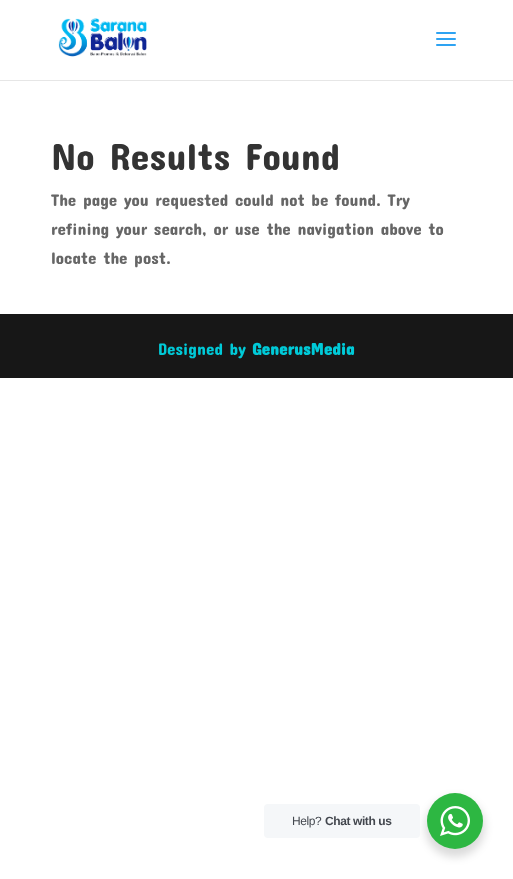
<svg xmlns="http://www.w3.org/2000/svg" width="513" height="879">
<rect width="100%" height="100%" fill="#fff"/>
<rect y="80" width="513" height="1" fill="#e6e6e6"/>
<image x="58" y="18" width="89" height="39" href="media/1.png"/>
<image x="436" y="32" width="20" height="14" href="media/2.png"/>
<text x="51" y="170" style="font-family:Concert One;font-size:38px;fill:#333">No Results Found</text>
<text x="51" y="206" style="font-family:Concert One;font-size:17px;fill:#666">The page you requested could not be found. Try</text>
<text x="51" y="235" style="font-family:Concert One;font-size:17px;fill:#666">refining your search, or use the navigation above to</text>
<text x="51" y="264" style="font-family:Concert One;font-size:17px;fill:#666">locate the post.</text>
<rect y="314" width="513" height="64" fill="#171717"/>
<text x="158" y="355" style="font-family:Concert One;font-size:17px;fill:#00cad8">Designed by</text>
<text x="252" y="355" style="font-family:Concert One;font-size:17px;font-weight:bold;fill:#00cad8">GenerusMedia</text>
<rect x="425" y="797" width="60" height="60" rx="30" fill="#00000024" filter="blur(4px)"/>
<rect x="264" y="804" width="156" height="34" rx="4" fill="#f5f7f9"/>
<text x="292" y="825" style="font-family:Liberation Sans;font-size:12px;letter-spacing:-0.4px;fill:#43474e">Help?</text>
<text x="325" y="825" style="font-family:Liberation Sans;font-size:12px;font-weight:bold;letter-spacing:-0.4px;fill:#43474e">Chat with us</text>
<circle cx="455" cy="821" r="28" fill="#2db742"/>
<image x="440" y="806" width="30" height="30" href="media/3.png"/>
</svg>
